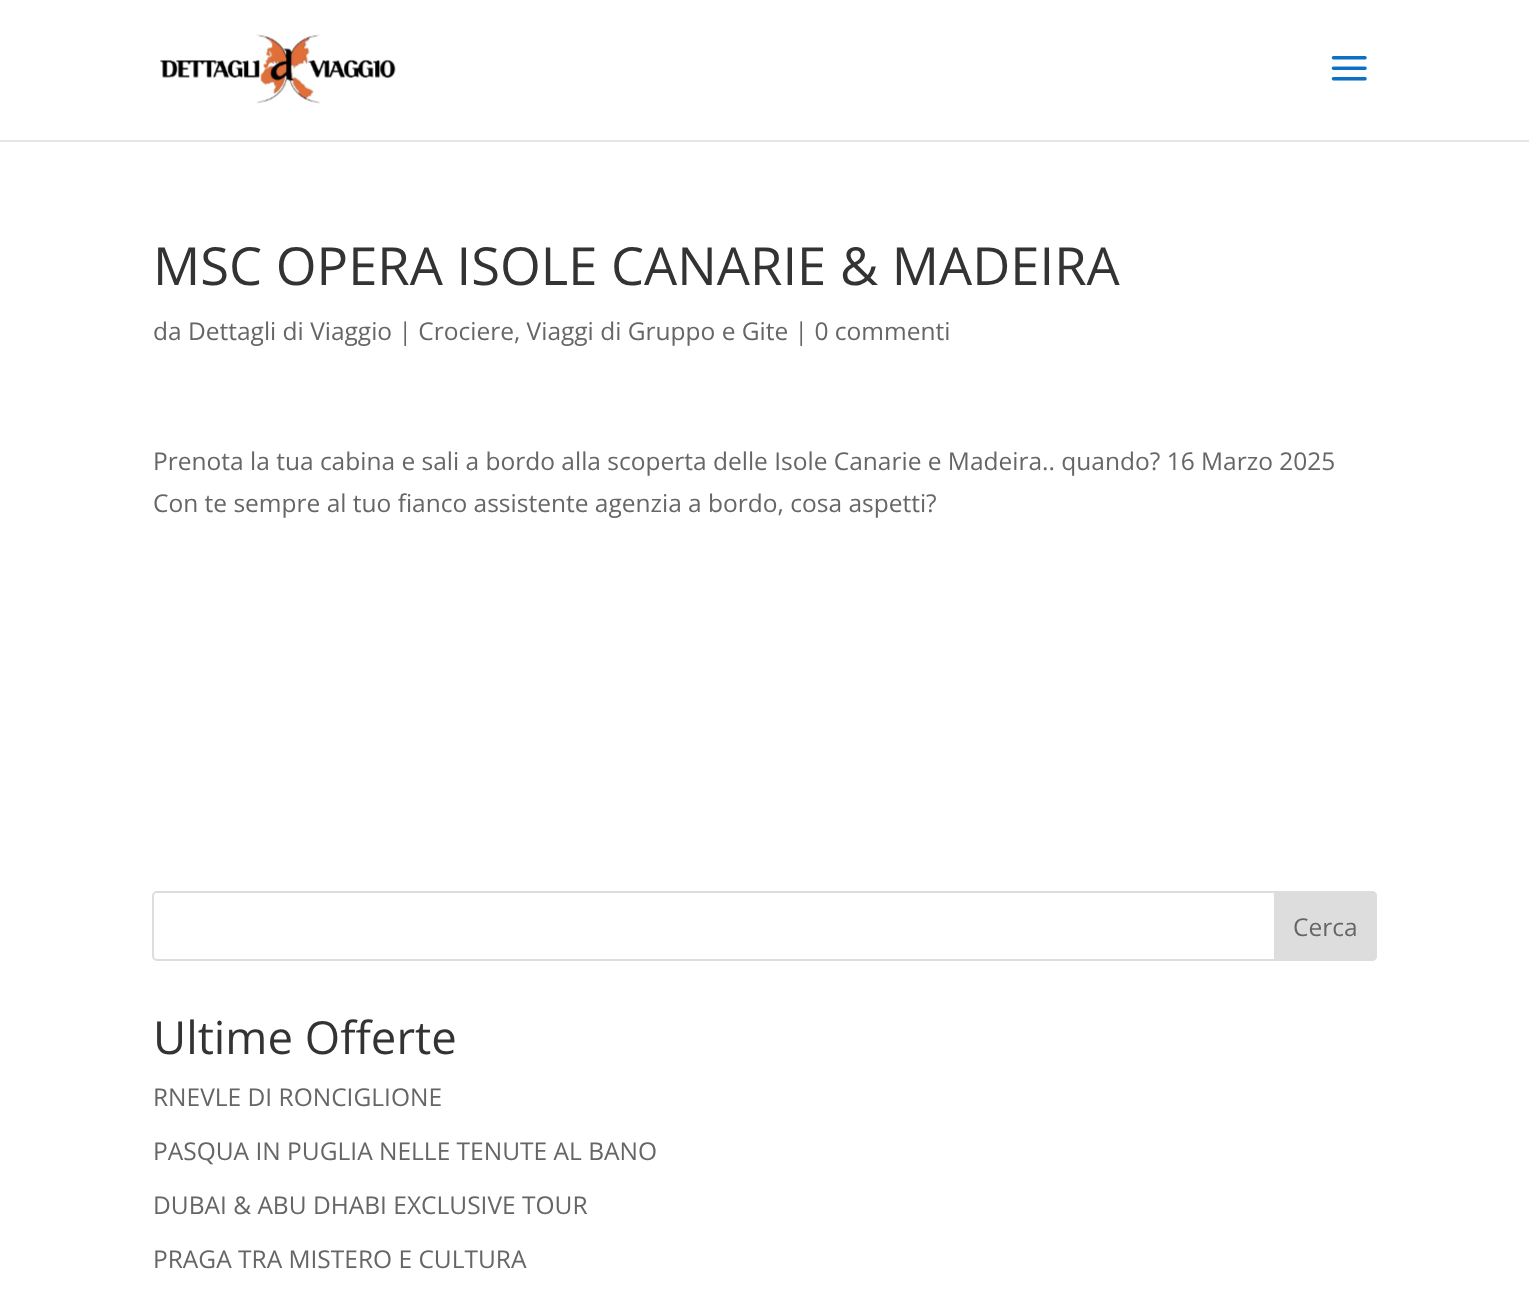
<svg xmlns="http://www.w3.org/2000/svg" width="1529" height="1293">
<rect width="100%" height="100%" fill="#fff"/>
<path d="M0 140v2h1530v-140v138z" fill="#e6e6e6"/>
<image x="159" y="34" width="237" height="70" href="media/1.png"/>
<image x="1331" y="56" width="36" height="25" href="media/2.png"/>
<text x="153" y="285" style="font-family:Open Sans;font-size:52.5px;fill:#333">MSC OPERA ISOLE CANARIE &amp; MADEIRA</text>
<text x="153" y="340" style="font-family:Open Sans;font-size:24.5px;fill:#666">da Dettagli di Viaggio | Crociere, Viaggi di Gruppo e Gite | 0 commenti</text>
<text x="153" y="470" style="font-family:Open Sans;font-size:24.5px;fill:#666">Prenota la tua cabina e sali a bordo alla scoperta delle Isole Canarie e Madeira.. quando? 16 Marzo 2025</text>
<text x="153" y="512" style="font-family:Open Sans;font-size:24.5px;fill:#666">Con te sempre al tuo fianco assistente agenzia a bordo, cosa aspetti?</text>
<rect x="153" y="892" width="1223" height="68" rx="4" fill="none" stroke="#ddd" stroke-width="2"/>
<path d="M1275 892h97c2 0 4 2 4 4v60c0 2-2 4-4 4h-97z" fill="#ddd" stroke="#ddd" stroke-width="2"/>
<text x="1293" y="936" style="font-family:Open Sans;font-size:24.5px;fill:#666">Cerca</text>
<text x="153" y="1054" style="font-family:Open Sans;font-size:45.5px;fill:#333">Ultime Offerte</text>
<text x="153" y="1106" style="font-family:Open Sans;font-size:24.5px;fill:#666">RNEVLE DI RONCIGLIONE</text>
<text x="153" y="1160" style="font-family:Open Sans;font-size:24.5px;fill:#666">PASQUA IN PUGLIA NELLE TENUTE AL BANO</text>
<text x="153" y="1214" style="font-family:Open Sans;font-size:24.5px;fill:#666">DUBAI &amp; ABU DHABI EXCLUSIVE TOUR</text>
<text x="153" y="1268" style="font-family:Open Sans;font-size:24.5px;fill:#666">PRAGA TRA MISTERO E CULTURA</text>
</svg>
